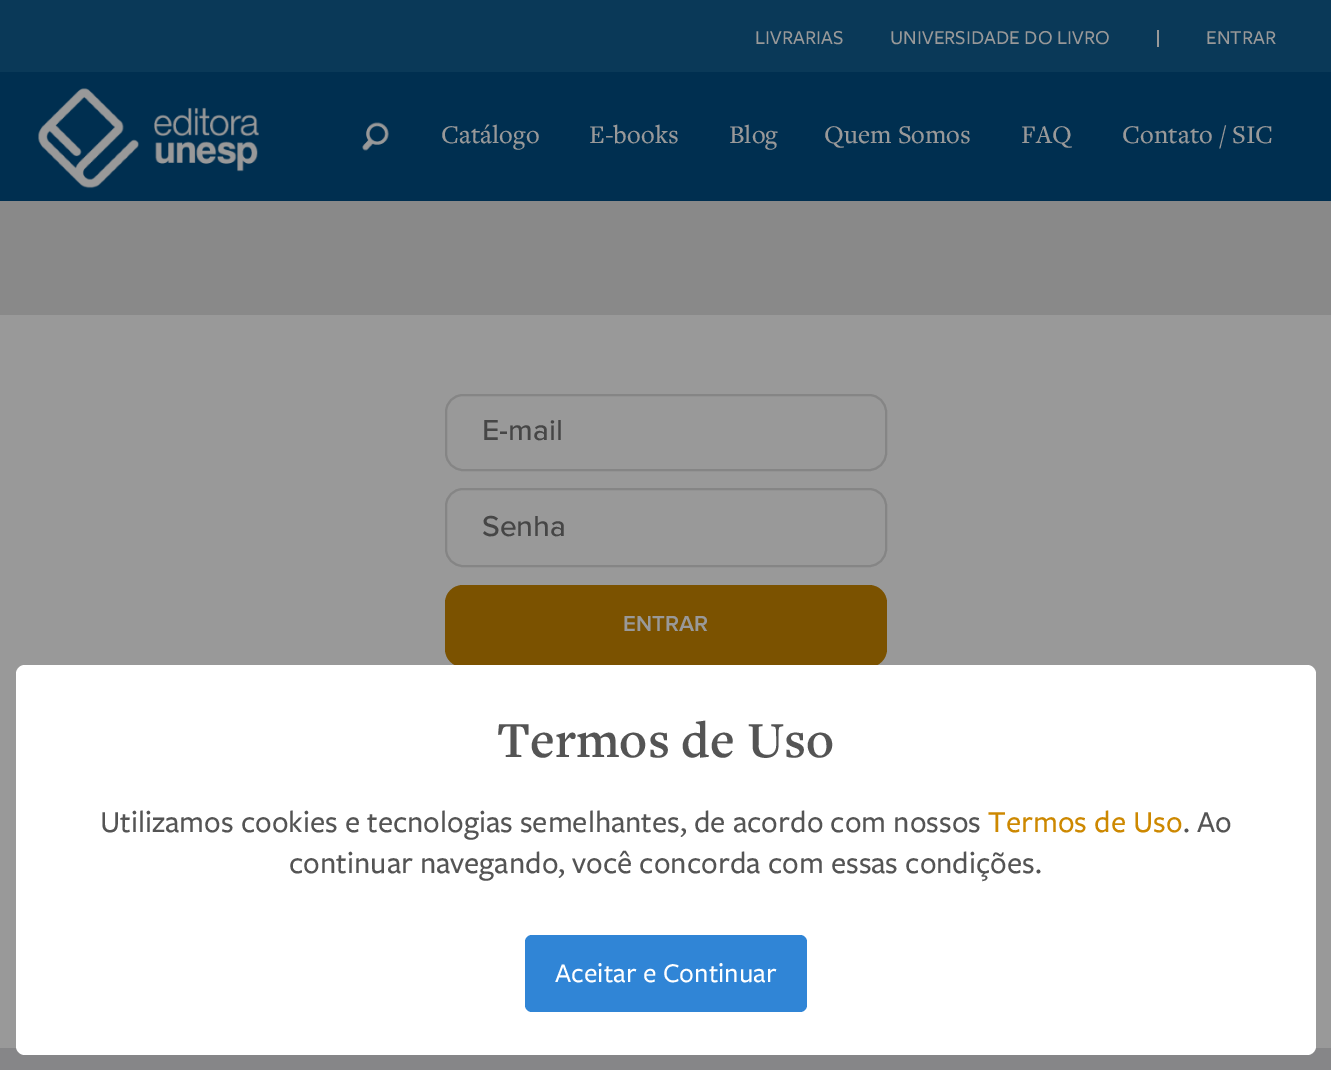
%!PS-Adobe-3.0
%%BoundingBox: 0 0 1331 1070
%%LanguageLevel: 3
%%Pages: 1
%%EndComments
%%BeginProlog
/setink { 3 { 255 div 3 1 roll } repeat setrgbcolor } def
/usefont { [ exch dup neg 0 0 3 -1 roll 0 0 ] selectfont } def
/drawtext { setink usefont moveto show } def
/fillbox { setink rectfill } def
/rrect { 5 dict begin { /r /h /w /y /x } { exch def } forall
  x r add y moveto x w add y 2 copy h add r arct x w add y h add x 1 index r arct
  x y h add x y r arct x y 2 copy exch w add exch r arct closepath end } def
/drawimage { 5 dict begin { /h /w /y /x /name } { exch def } forall
  gsave x y translate w h scale
  w h 8 [w 0 0 h 0 0] name (r) file false 3 colorimage grestore end } def
%%EndProlog
%%BeginSetup
<< /PageSize [1331 1070] >> setpagedevice
%%EndSetup
%%Page: 1 1
0 1070 translate 1 -1 scale
4 setmiterlimit
0 0 1331 1070 10 57 88 fillbox
(LIVRARIAS) 755 44 /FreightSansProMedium-Medium 20.5 153 153 153 drawtext
(UNIVERSIDADE DO LIVRO) 890 44 /FreightSansProMedium-Medium 20.5 153 153 153 drawtext
1157 30 2 17 153 153 153 fillbox
(ENTRAR) 1206 44 /FreightSansProMedium-Medium 20.5 153 153 153 drawtext
0 72 1331 129 0 47 80 fillbox
(assets/img1.rgb) 38 88 221 101 drawimage
(assets/img2.rgb) 362 122 27 29 drawimage
(Catálogo) 441 143 /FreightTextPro-Medium 26.5 153 153 153 drawtext
(E-books) 589 143 /FreightTextPro-Medium 26.5 153 153 153 drawtext
(Blog) 729 143 /FreightTextPro-Medium 26.5 153 153 153 drawtext
(Quem Somos) 824 143 /FreightTextPro-Medium 26.5 153 153 153 drawtext
(FAQ) 1021 143 /FreightTextPro-Medium 26.5 153 153 153 drawtext
(Contato / SIC) 1122 143 /FreightTextPro-Medium 26.5 153 153 153 drawtext
0 201 1331 114 137 137 137 fillbox
0 315 1331 733 153 153 153 fillbox
133 133 133 setink
2 setlinewidth
446 395 440 75 17 rrect stroke
(E-mail) 482 440 /ProximaNova-Medium 30 70 70 70 drawtext
133 133 133 setink
446 489 440 77 17 rrect stroke
(Senha) 482 536 /ProximaNova-Medium 30 70 70 70 drawtext
123 82 0 setink
445 585 442 82 18 rrect fill
(ENTRAR) 623 631 /ProximaNova-SemiBold 22.5 153 153 153 drawtext
0 1048 1331 22 134 134 136 fillbox
255 255 255 setink
16 665 1300 390 9 rrect fill
(Termos de Uso) 497 757 /FreightTextPro-SemiBold 52.5 84 84 84 drawtext
(Utilizamos cookies e tecnologias semelhantes, de acordo com nossos) 100 832 /FreightSansProMedium-Medium 31.5 84 84 84 drawtext
(Termos de Uso) 988 832 /FreightSansProMedium-Medium 31.5 205 136 0 drawtext
(. Ao) 1183 832 /FreightSansProMedium-Medium 31.5 84 84 84 drawtext
(continuar navegando, você concorda com essas condições.) 289 873 /FreightSansProMedium-Medium 31.5 84 84 84 drawtext
48 133 214 setink
525 935 282 77 7 rrect fill
(Aceitar e Continuar) 555 982 /FreightSansProMedium-Medium 28 255 255 255 drawtext
showpage
%%EOF
